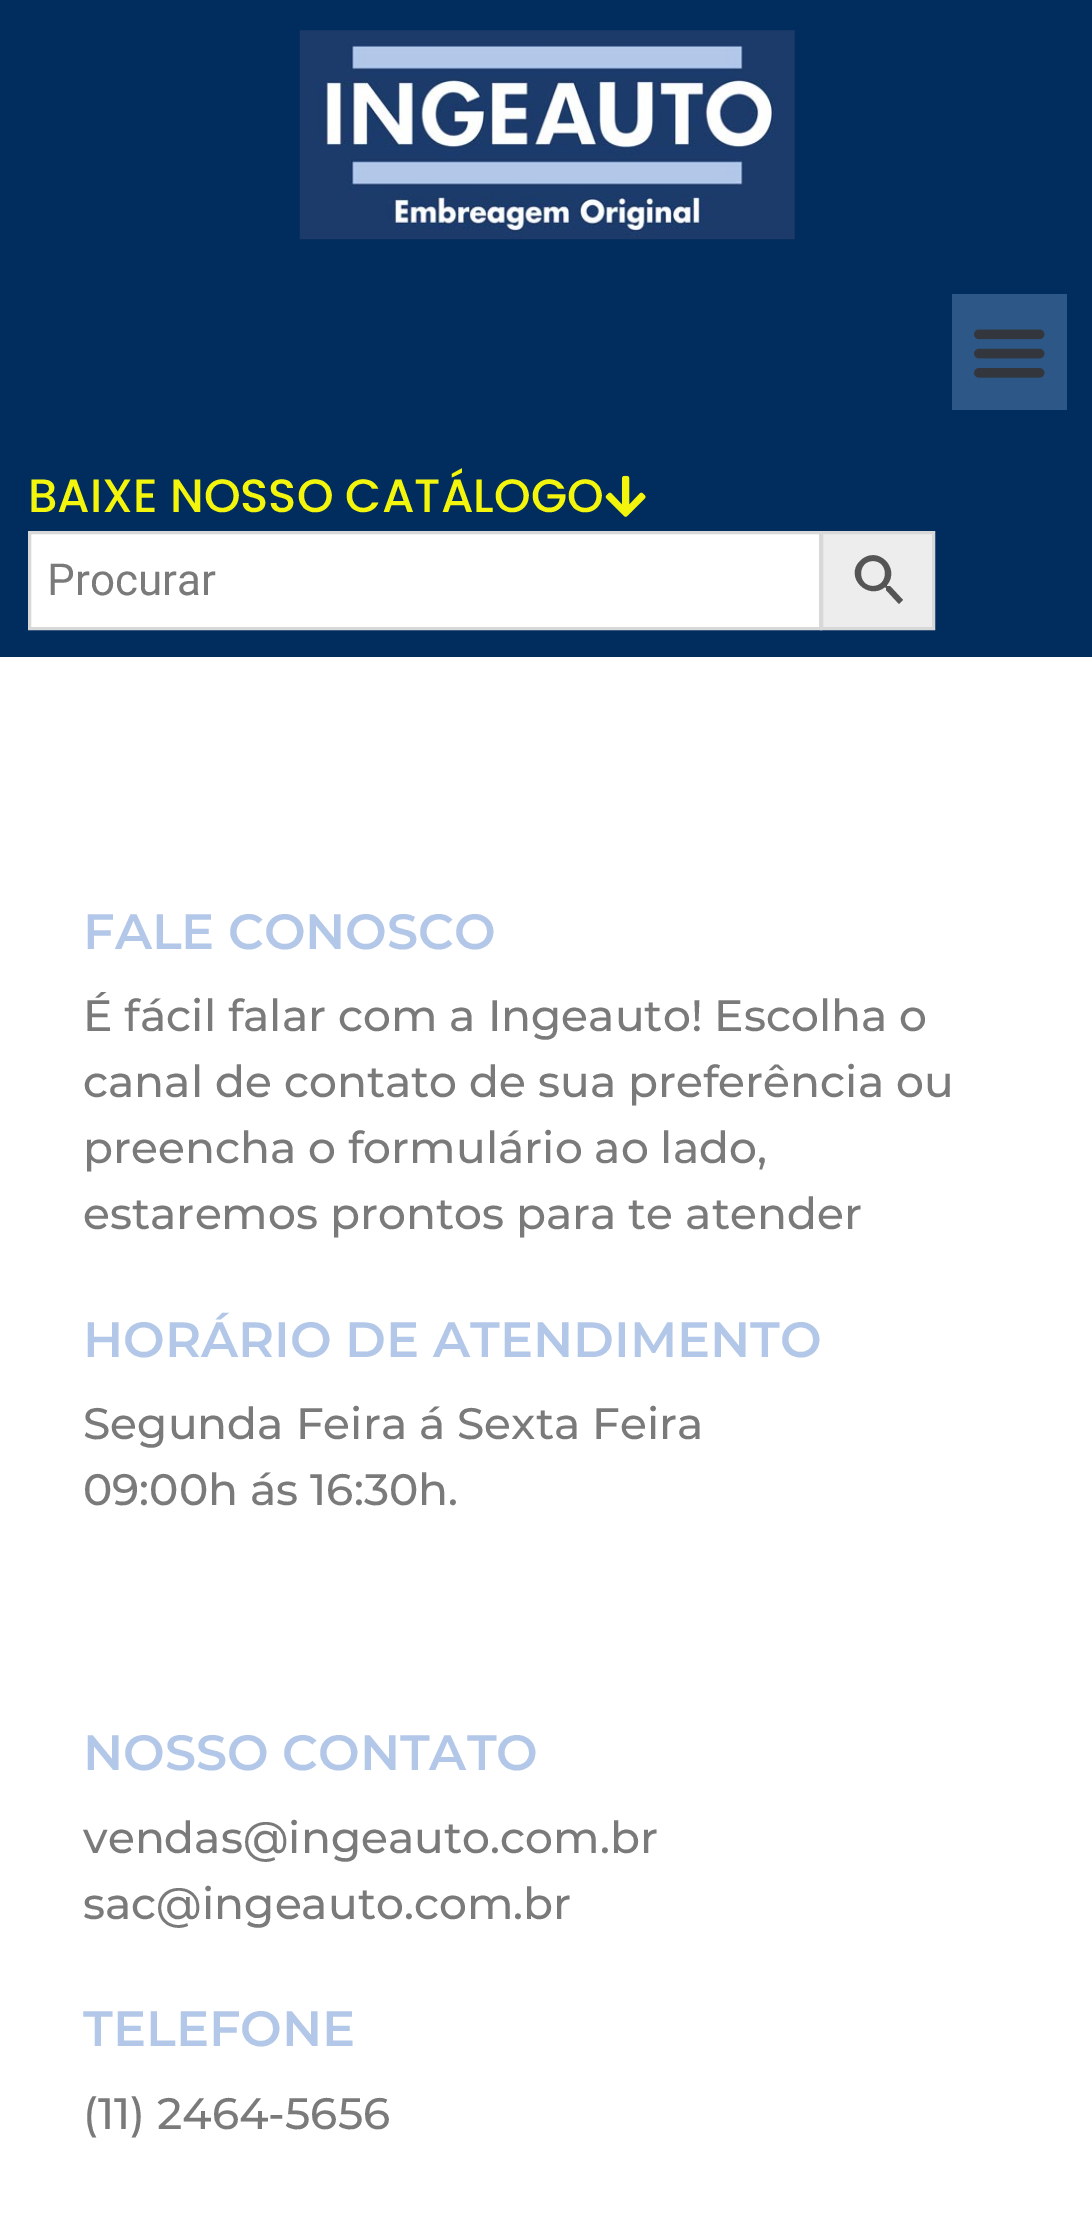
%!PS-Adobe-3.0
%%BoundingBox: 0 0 1092 2235
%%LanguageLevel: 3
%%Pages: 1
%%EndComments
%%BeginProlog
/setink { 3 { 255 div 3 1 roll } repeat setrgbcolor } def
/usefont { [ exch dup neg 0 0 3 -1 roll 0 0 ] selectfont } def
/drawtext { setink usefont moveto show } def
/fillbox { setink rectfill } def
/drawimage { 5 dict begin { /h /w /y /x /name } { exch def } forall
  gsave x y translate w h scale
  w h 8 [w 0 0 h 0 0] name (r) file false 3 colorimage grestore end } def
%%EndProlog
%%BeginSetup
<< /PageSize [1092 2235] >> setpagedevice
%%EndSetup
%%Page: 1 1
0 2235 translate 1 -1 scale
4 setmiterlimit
0 0 1092 2235 255 255 255 fillbox
0 0 1092 657 0 45 94 fillbox
(assets/img1.rgb) 299 30 496 210 drawimage
952 294 115 116 45 87 134 fillbox
(assets/img2.rgb) 974 329 71 49 drawimage
(BAIXE NOSSO CATÁLOGO) 28 512 /Poppins-Medium 46.75 244 245 12 drawtext
(assets/img3.rgb) 605 475 41 42 drawimage
237 237 237 setink
821.5 532.5 moveto 933.5 532.5 lineto 933.5 628.5 lineto 821.5 628.5 lineto closepath gsave fill grestore
216 216 216 setink
3 setlinewidth
stroke
255 255 255 setink
29.5 532.5 moveto 820.5 532.5 lineto 820.5 628.5 lineto 29.5 628.5 lineto closepath gsave fill grestore
216 216 216 setink
stroke
(Procurar) 47 595 /Roboto-Regular 44 122 122 122 drawtext
85 85 85 setink
890 586 moveto 887 586 lineto 887 585 lineto 901 568 877 544 860 561 curveto 844 577 868 601 885 587 curveto 886 588 lineto 886 590 lineto 899 604 lineto 903 600 lineto closepath 873 586 moveto 857 586 857 561 873 561 curveto 889 561 889 586 873 586 curveto closepath fill
(FALE CONOSCO) 83 949 /Montserrat-SemiBold 49.5 179 199 232 drawtext
(É fácil falar com a Ingeauto! Escolha o) 83 1031 /Montserrat-Medium 44 122 122 122 drawtext
(canal de contato de sua preferência ou) 83 1097 /Montserrat-Medium 44 122 122 122 drawtext
(preencha o formulário ao lado,) 83 1163 /Montserrat-Medium 44 122 122 122 drawtext
(estaremos prontos para te atender) 83 1229 /Montserrat-Medium 44 122 122 122 drawtext
(HORÁRIO DE ATENDIMENTO) 83 1357 /Montserrat-SemiBold 49.5 179 199 232 drawtext
(Segunda Feira á Sexta Feira) 83 1439 /Montserrat-Medium 44 122 122 122 drawtext
(09:00h ás 16:30h.) 83 1505 /Montserrat-Medium 44 122 122 122 drawtext
(NOSSO CONTATO) 83 1770 /Montserrat-SemiBold 49.5 179 199 232 drawtext
(vendas@ingeauto.com.br) 83 1853 /Montserrat-Medium 44 122 122 122 drawtext
(sac@ingeauto.com.br) 83 1919 /Montserrat-Medium 44 122 122 122 drawtext
(TELEFONE) 83 2046 /Montserrat-SemiBold 49.5 179 199 232 drawtext
(\(11\) 2464-5656) 83 2129 /Montserrat-Medium 44 122 122 122 drawtext
showpage
%%EOF
